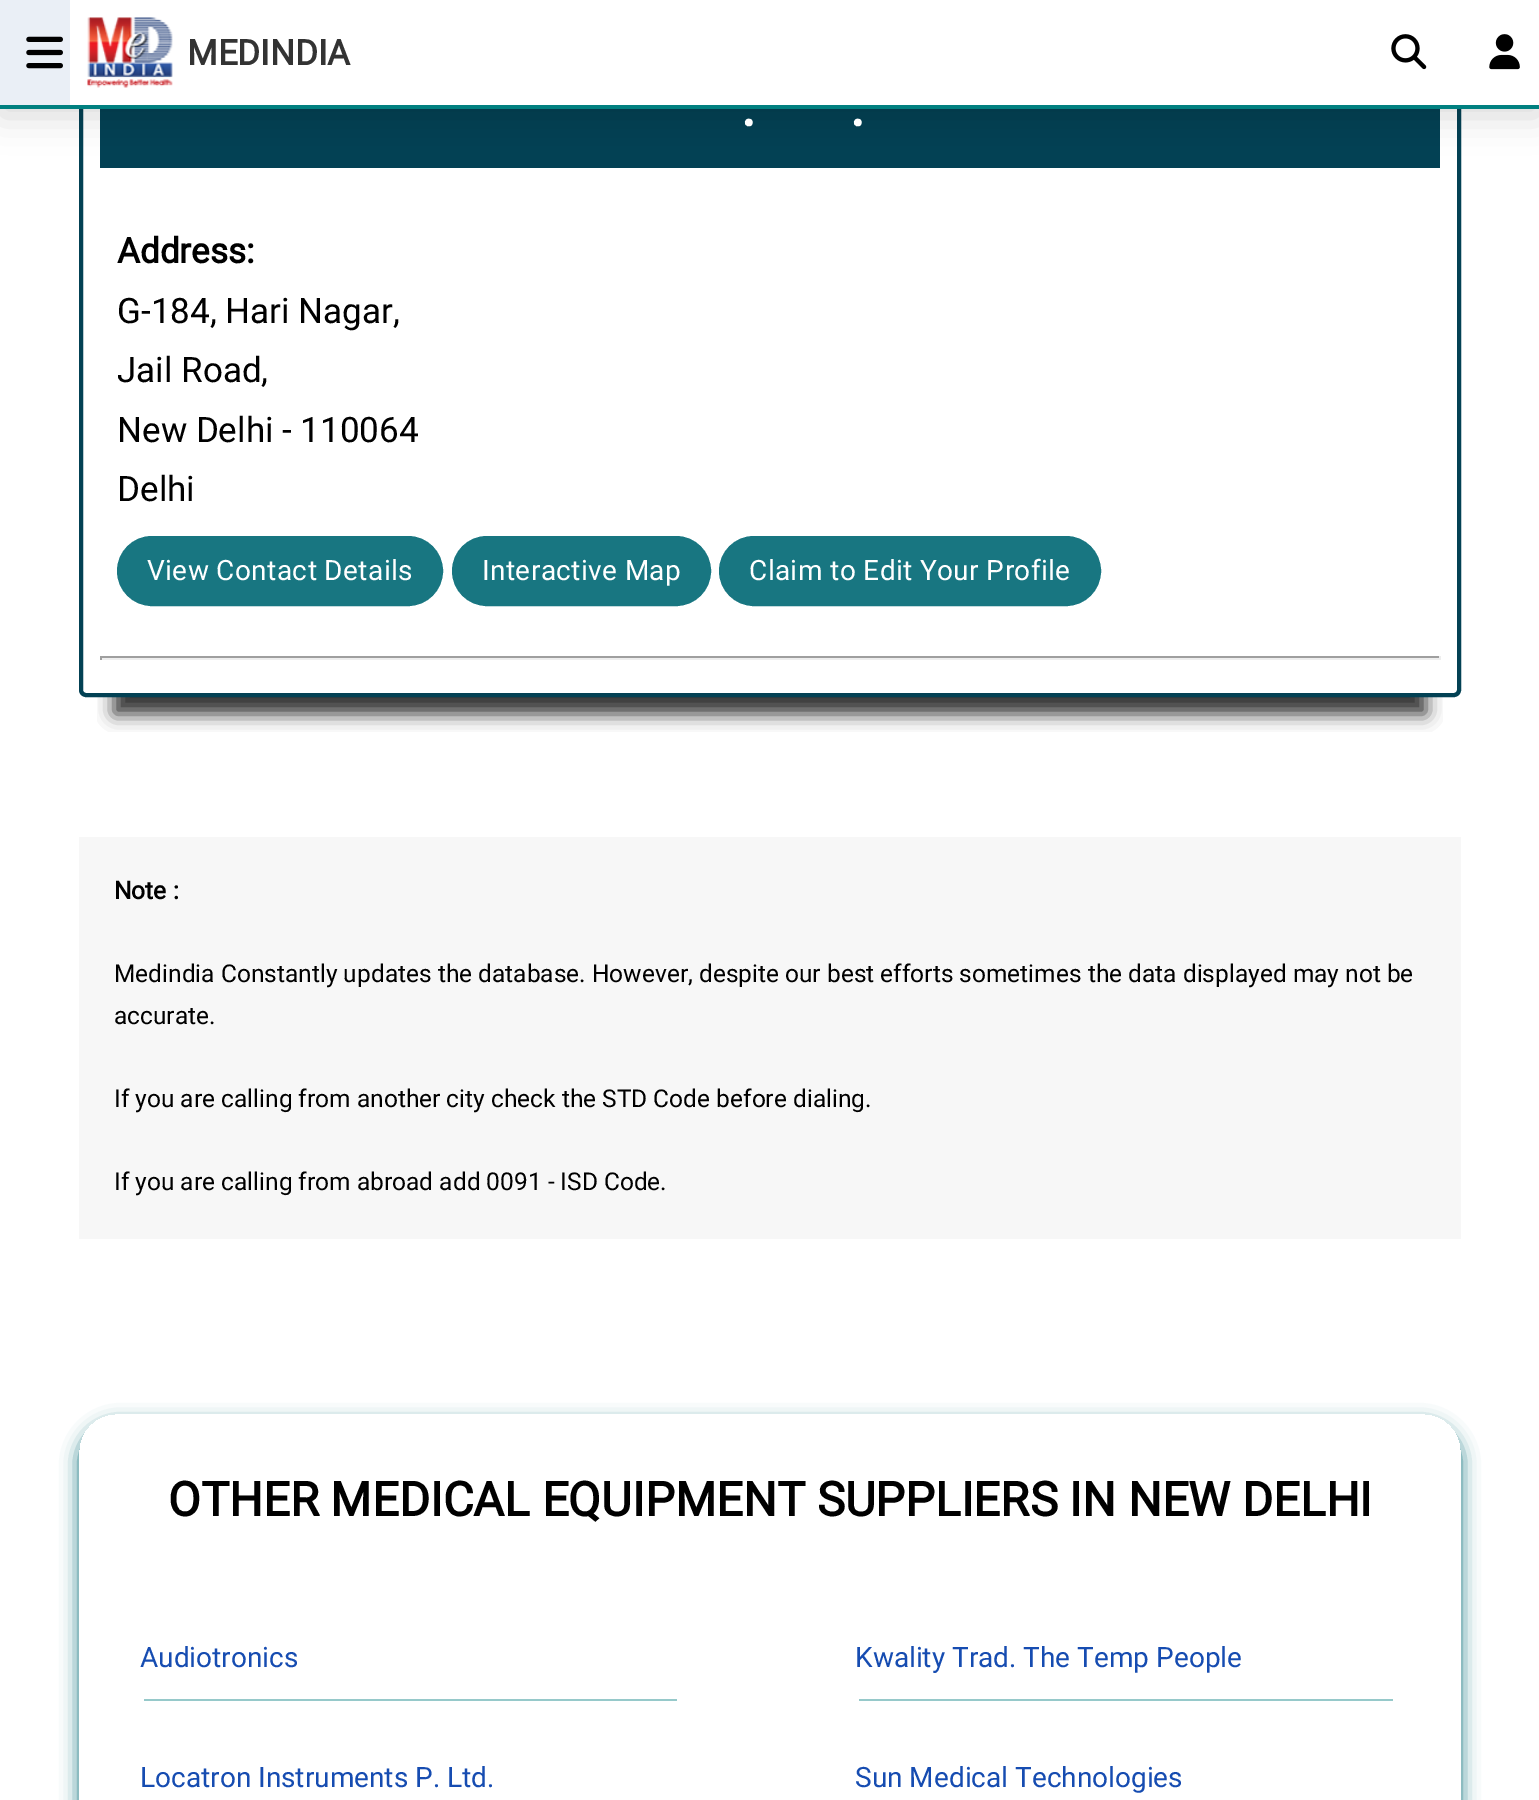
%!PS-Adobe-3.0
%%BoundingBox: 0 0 1539 1800
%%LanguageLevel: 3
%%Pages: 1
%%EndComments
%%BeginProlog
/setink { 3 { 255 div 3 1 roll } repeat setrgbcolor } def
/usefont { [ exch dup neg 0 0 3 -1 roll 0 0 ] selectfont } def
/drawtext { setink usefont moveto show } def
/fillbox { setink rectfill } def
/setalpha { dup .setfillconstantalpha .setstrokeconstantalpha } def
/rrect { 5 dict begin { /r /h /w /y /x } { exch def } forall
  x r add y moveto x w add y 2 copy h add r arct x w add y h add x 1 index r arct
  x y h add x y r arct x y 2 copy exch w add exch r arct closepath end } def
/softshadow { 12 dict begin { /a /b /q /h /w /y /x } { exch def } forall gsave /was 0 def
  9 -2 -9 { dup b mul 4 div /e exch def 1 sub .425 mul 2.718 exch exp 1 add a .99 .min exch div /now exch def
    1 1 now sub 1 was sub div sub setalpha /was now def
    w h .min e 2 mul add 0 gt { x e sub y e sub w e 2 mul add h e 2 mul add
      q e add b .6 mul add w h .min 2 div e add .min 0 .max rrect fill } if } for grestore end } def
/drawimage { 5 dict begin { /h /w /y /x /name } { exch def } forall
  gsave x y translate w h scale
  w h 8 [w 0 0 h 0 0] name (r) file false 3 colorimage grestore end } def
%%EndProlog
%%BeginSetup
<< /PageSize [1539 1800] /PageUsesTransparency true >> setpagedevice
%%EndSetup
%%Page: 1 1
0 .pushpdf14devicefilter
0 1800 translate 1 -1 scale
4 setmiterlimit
0 0 1539 1800 255 255 255 fillbox
gsave
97 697 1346 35 rectclip
0 0 0 setink
114 112 1312 602 0 9 0.8 softshadow
grestore
3 65 84 setink
4 setlinewidth
81 27 1378 668 5 rrect stroke
100 109 1340 59 3 65 84 fillbox
0 0 0 setink
0 7 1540 109 0 17.5 0.15 softshadow
70 0 1469 105 255 255 255 fillbox
0 105 1539 4 0 128 128 fillbox
0 0 70 105 234 239 246 fillbox
(assets/img1.rgb) 26 36 37 33 drawimage
(assets/img2.rgb) 87 17 86 71 drawimage
(MEDINDIA) 187 65 /Roboto-Bold 35 51 51 51 drawtext
(assets/img3.rgb) 1391 34 36 36 drawimage
(assets/img4.rgb) 1489 34 31 36 drawimage
(.) 741 126 /Roboto-Bold 56 255 255 255 drawtext
(.) 850 126 /Roboto-Bold 56 255 255 255 drawtext
(Address:) 117 263 /Roboto-Bold 35 0 0 0 drawtext
(G-184, Hari Nagar,) 117 323 /Roboto-Regular 35 0 0 0 drawtext
(Jail Road,) 117 382 /Roboto-Regular 35 0 0 0 drawtext
(New Delhi - 110064) 117 442 /Roboto-Regular 35 0 0 0 drawtext
(Delhi) 117 501 /Roboto-Regular 35 0 0 0 drawtext
24 118 129 setink
118 537 324 68 34 rrect gsave fill grestore
2 setlinewidth
stroke
/Roboto-Regular 28 usefont
255 255 255 setink
147 580 moveto 0.4 0 (View Contact Details) ashow
24 118 129 setink
453 537 257 68 34 rrect gsave fill grestore
stroke
255 255 255 setink
482 580 moveto 0.4 0 (Interactive Map) ashow
24 118 129 setink
720 537 380 68 34 rrect gsave fill grestore
stroke
255 255 255 setink
749 580 moveto 0.4 0 (Claim to Edit Your Profile) ashow
100 656 1340 2 159 159 159 fillbox
1439 656 2 4 238 238 238 fillbox
100 658 1340 2 238 238 238 fillbox
100 656 2 4 159 159 159 fillbox
79 837 1382 402 247 247 247 fillbox
(Note :) 114 899 /Roboto-Bold 24.5 0 0 0 drawtext
(Medindia Constantly updates the database. However, despite our best efforts sometimes the data displayed may not be) 114 982 /Roboto-Regular 24.5 0 0 0 drawtext
(accurate.) 114 1024 /Roboto-Regular 24.5 0 0 0 drawtext
(If you are calling from another city check the STD Code before dialing.) 114 1107 /Roboto-Regular 24.5 0 0 0 drawtext
(If you are calling from abroad add 0091 - ISD Code.) 114 1190 /Roboto-Regular 24.5 0 0 0 drawtext
gsave
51 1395 moveto 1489 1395 lineto 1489 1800 lineto 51 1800 lineto closepath 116 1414 moveto 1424 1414 lineto 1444.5 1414 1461 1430.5 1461 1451 curveto 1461 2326 lineto 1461 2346.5 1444.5 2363 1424 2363 curveto 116 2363 lineto 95.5 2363 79 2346.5 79 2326 curveto 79 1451 lineto 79 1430.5 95.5 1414 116 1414 curveto closepath eoclip newpath
24 118 129 setink
79 1423 1382 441 37 9 1 softshadow
grestore
(OTHER MEDICAL EQUIPMENT SUPPLIERS IN NEW DELHI) 168 1516 /Roboto-Bold 47.35 0 0 0 drawtext
144 1699 533 2 150 201 202 fillbox
(Audiotronics) 140 1667 /Roboto-Regular 28 22 76 177 drawtext
859 1699 534 2 150 201 202 fillbox
(Kwality Trad. The Temp People) 855 1667 /Roboto-Regular 28 22 76 177 drawtext
(Locatron Instruments P. Ltd.) 140 1787 /Roboto-Regular 28 22 76 177 drawtext
(Sun Medical Technologies) 855 1787 /Roboto-Regular 28 22 76 177 drawtext
.poppdf14devicefilter showpage
%%EOF
